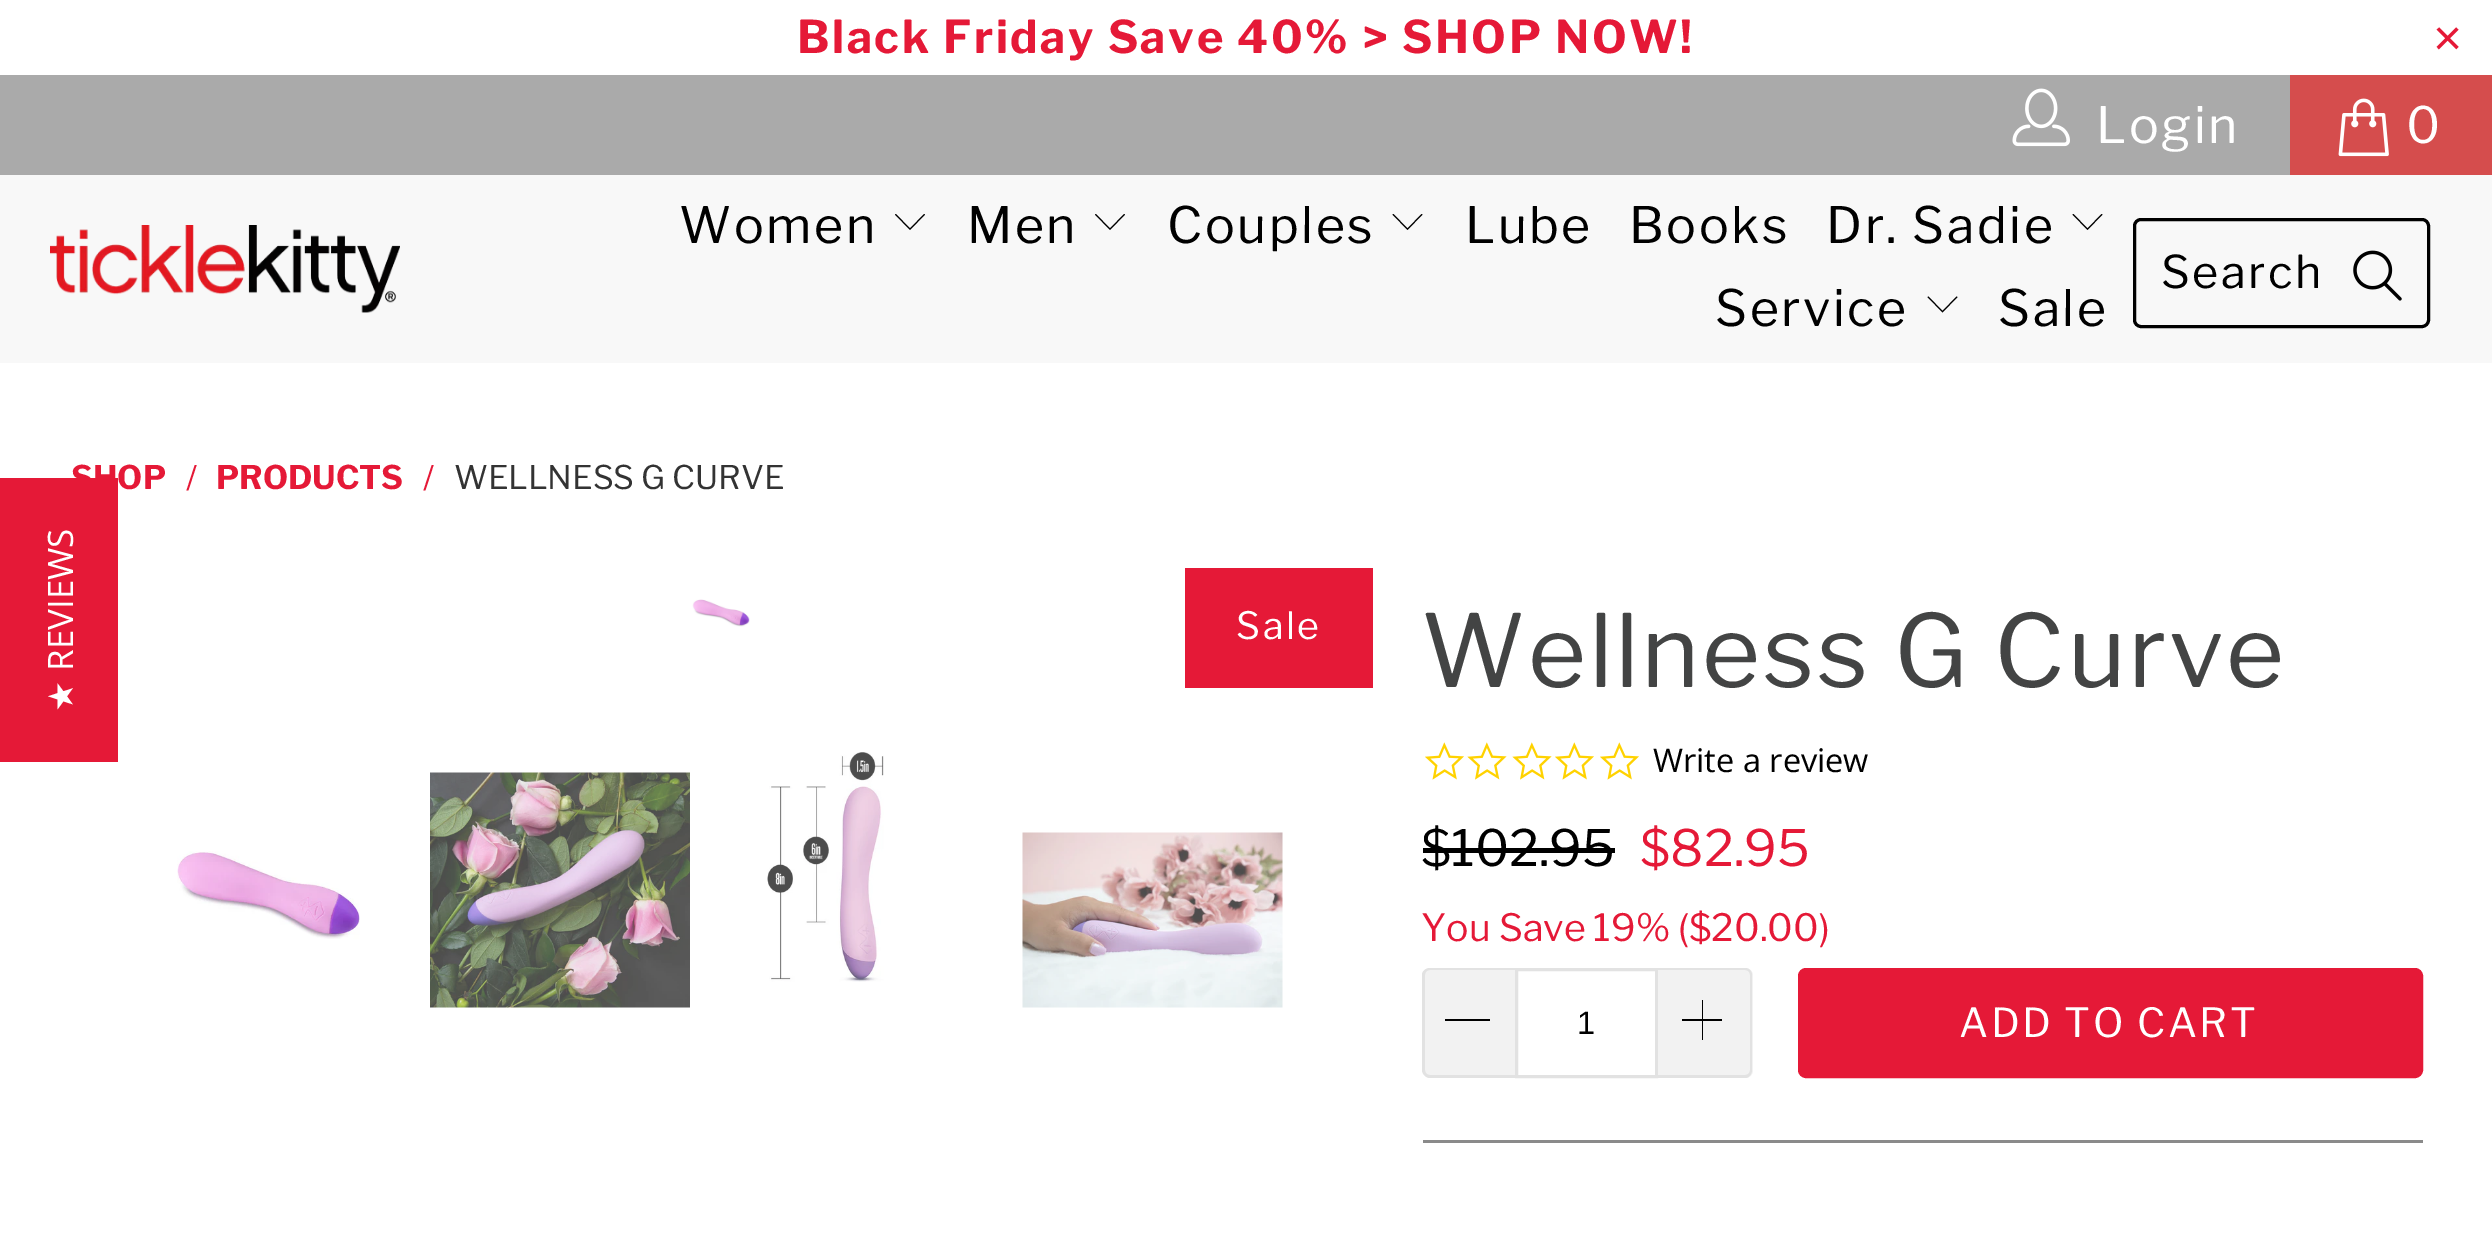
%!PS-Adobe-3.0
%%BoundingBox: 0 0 2492 1238
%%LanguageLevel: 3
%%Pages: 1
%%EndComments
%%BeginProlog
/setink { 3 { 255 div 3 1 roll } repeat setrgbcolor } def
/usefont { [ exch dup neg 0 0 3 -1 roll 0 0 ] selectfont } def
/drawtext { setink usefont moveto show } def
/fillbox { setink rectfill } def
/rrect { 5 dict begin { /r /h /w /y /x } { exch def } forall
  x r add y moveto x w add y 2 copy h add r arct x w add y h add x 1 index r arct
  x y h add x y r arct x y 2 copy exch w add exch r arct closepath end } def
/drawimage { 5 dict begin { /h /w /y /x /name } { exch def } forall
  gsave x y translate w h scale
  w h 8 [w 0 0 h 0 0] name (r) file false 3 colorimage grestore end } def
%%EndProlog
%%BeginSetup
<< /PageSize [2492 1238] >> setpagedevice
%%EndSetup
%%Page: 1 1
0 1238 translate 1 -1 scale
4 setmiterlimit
0 0 2492 1238 255 255 255 fillbox
/LibreFranklin-Bold 45 usefont
229 25 55 setink
797 53 moveto 2.5 0 (Black Friday Save 40% > SHOP NOW!) ashow
/LiberationSans-Regular 50 usefont
2433 55 moveto 2.5 0 (×) ashow
0 75 2290 100 170 170 170 fillbox
(assets/img1.rgb) 2012 88 58 59 drawimage
/LibreFranklin-Regular 50 usefont
255 255 255 setink
2096 143 moveto 2.5 0 (Login) ashow
2290 75 202 100 213 77 77 fillbox
(assets/img2.rgb) 2338 98 51 59 drawimage
255 255 255 setink
2406 143 moveto 2.5 0 (0) ashow
0 175 2492 188 248 248 248 fillbox
(assets/img3.rgb) 50 225 350 88 drawimage
0 0 0 setink
679 243 moveto 2.5 0 (Women) ashow
910 230 moveto 895 214.5 lineto 896 214 lineto 910 228.5 lineto 924 214 lineto 925 214.5 lineto closepath fill
967 243 moveto 2.5 0 (Men) ashow
1110 230 moveto 1095 214.5 lineto 1096 214 lineto 1110 228.5 lineto 1124 214 lineto 1125 214.5 lineto closepath fill
1167 243 moveto 2.5 0 (Couples) ashow
1407.5 230 moveto 1392.5 214.5 lineto 1393.5 214 lineto 1407.5 228.5 lineto 1421.5 214 lineto 1422.5 214.5 lineto closepath fill
1465 243 moveto 2.5 0 (Lube) ashow
1629 243 moveto 2.5 0 (Books) ashow
1826 243 moveto 2.5 0 (Dr. Sadie) ashow
2087.5 230 moveto 2072.5 214.5 lineto 2073.5 214 lineto 2087.5 228.5 lineto 2101.5 214 lineto 2102.5 214.5 lineto closepath fill
1715 326 moveto 2.5 0 (Service) ashow
1942.5 312.5 moveto 1927.5 297 lineto 1928.5 296.5 lineto 1942.5 311 lineto 1956.5 296.5 lineto 1957.5 297 lineto closepath fill
1998 326 moveto 2.5 0 (Sale) ashow
3 setlinewidth
2134.5 219.5 294 107 6.5 rrect stroke
/LibreFranklin-Regular 45 usefont
2161 288 moveto 2.5 0 (Search) ashow
(assets/img4.rgb) 2353 250 49 51 drawimage
0 478 118 284 229 25 55 fillbox
/OpenSans-Regular 35 usefont
255 255 255 setink
gsave 73 671 translate -90 rotate 0 0 moveto (REVIEWS) show grestore
/DejaVuSans-Regular 35 usefont
gsave 73 712 translate -90 rotate 0 0 moveto (★) show grestore
(SHOP) 71 489 /LibreFranklin-Bold 32.5 229 25 55 drawtext
(/) 186 489 /LibreFranklin-Regular 32.5 229 25 55 drawtext
(PRODUCTS) 216 489 /LibreFranklin-Bold 32.5 229 25 55 drawtext
(/) 423 489 /LibreFranklin-Regular 32.5 229 25 55 drawtext
(WELLNESS G CURVE) 454 489 /LibreFranklin-Regular 32.5 51 51 51 drawtext
(assets/img5.rgb) 692 599 58 28 drawimage
(assets/img6.rgb) 177 851 183 88 drawimage
(assets/img7.rgb) 430 772 260 236 drawimage
(assets/img8.rgb) 767 752 117 230 drawimage
(assets/img9.rgb) 1022 832 261 176 drawimage
1185 568 188 120 229 25 55 fillbox
/LibreFranklin-Regular 37.5 usefont
255 255 255 setink
1236 639 moveto 2.5 0 (Sale) ashow
/LibreFranklin-Regular 100 usefont
67 68 68 setink
1421 687 moveto 2.5 0 (Wellness G Curve) ashow
(assets/img10.rgb) 1425 742 39 38 drawimage
(assets/img11.rgb) 1467 742 40 38 drawimage
(assets/img11.rgb) 1512 742 40 38 drawimage
(assets/img10.rgb) 1555 742 39 38 drawimage
(assets/img10.rgb) 1600 742 39 38 drawimage
(Write a review) 1653 772 /OpenSans-Regular 32.5 0 0 0 drawtext
($102.95) 1421 866 /LibreFranklin-Regular 50 0 0 0 drawtext
1423 848 192 5 0 0 0 fillbox
($82.95) 1640 866 /LibreFranklin-Regular 50 229 25 55 drawtext
(You Save 19% \($20.00\)) 1421 941 /LibreFranklin-Regular 37.5 229 25 55 drawtext
1423 1140 1000 3 138 138 138 fillbox
242 242 242 setink
1431 968 moveto 1515 968 lineto 1515 1078 lineto 1431 1078 lineto 1426.5 1078 1423 1074.5 1423 1070 curveto 1423 976 lineto 1423 971.5 1426.5 968 1431 968 curveto closepath fill
226 226 226 setink
1430 968 moveto 1515 968 lineto 1515 1078 lineto 1430 1078 lineto 1426 1078 1422 1074 1422 1070 curveto 1422 975 lineto 1422 971 1426 968 1430 968 curveto closepath 1430 970 moveto 1515 970 lineto 1515 1075 lineto 1430 1075 lineto 1427 1075 1425 1073 1425 1070 curveto 1425 975 lineto 1425 972 1427 970 1430 970 curveto closepath eofill
1445 1019 45 2 0 0 0 fillbox
226 226 226 setink
1516.5 969.5 140 107 rectstroke
(1) 1577 1034 /LiberationSans-Regular 32.5 0 0 0 drawtext
242 242 242 setink
1658 968 moveto 1745 968 lineto 1749.5 968 1753 971.5 1753 976 curveto 1753 1070 lineto 1753 1074.5 1749.5 1078 1745 1078 curveto 1658 1078 lineto closepath fill
226 226 226 setink
1658 968 moveto 1745 968 lineto 1749 968 1752 971 1752 975 curveto 1752 1070 lineto 1752 1074 1749 1078 1745 1078 curveto 1658 1078 lineto closepath 1658 970 moveto 1745 970 lineto 1748 970 1750 972 1750 975 curveto 1750 1070 lineto 1750 1073 1748 1075 1745 1075 curveto 1658 1075 lineto closepath eofill
0 0 0 setink
1722 1019 moveto 1703 1019 lineto 1703 1000 lineto 1702 1000 lineto 1702 1019 lineto 1682 1019 lineto 1682 1021 lineto 1702 1021 lineto 1702 1040 lineto 1703 1040 lineto 1703 1021 lineto 1722 1021 lineto closepath fill
229 25 55 setink
1799.5 969.5 622 107 6.5 rrect gsave fill grestore
stroke
/LibreFranklin-Regular 40 usefont
255 255 255 setink
1959 1037 moveto 2.5 0 (ADD TO CART) ashow
showpage
%%EOF
